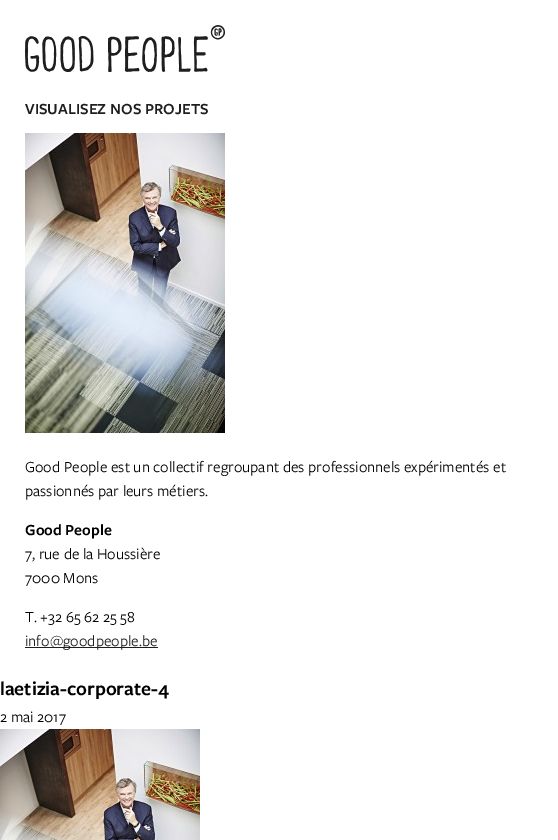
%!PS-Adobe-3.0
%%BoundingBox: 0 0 558 840
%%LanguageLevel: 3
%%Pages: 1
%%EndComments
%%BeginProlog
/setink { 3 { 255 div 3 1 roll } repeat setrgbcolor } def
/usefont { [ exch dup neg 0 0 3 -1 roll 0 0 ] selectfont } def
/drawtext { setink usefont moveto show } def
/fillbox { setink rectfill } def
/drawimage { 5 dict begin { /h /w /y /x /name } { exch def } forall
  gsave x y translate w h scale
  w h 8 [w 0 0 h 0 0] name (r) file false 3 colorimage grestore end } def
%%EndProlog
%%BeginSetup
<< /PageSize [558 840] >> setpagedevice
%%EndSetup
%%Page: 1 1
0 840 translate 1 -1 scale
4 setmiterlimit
0 0 558 840 255 255 255 fillbox
(assets/img1.rgb) 25 25 200 47 drawimage
(VISUALISEZ NOS PROJETS) 25 114 /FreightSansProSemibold-SemiBold 16 30 30 30 drawtext
(assets/img2.rgb) 25 133 200 300 drawimage
(Good People est un collectif regroupant des professionnels expérimentés et) 25 472 /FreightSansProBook-Regular 16 0 0 0 drawtext
(passionnés par leurs métiers.) 25 496 /FreightSansProBook-Regular 16 0 0 0 drawtext
(Good People) 25 535 /FreightSansProSemibold-SemiBold 16 0 0 0 drawtext
(7, rue de la Houssière) 25 559 /FreightSansProBook-Regular 16 0 0 0 drawtext
(7000 Mons) 25 583 /FreightSansProBook-Regular 16 0 0 0 drawtext
(T. +32 65 62 25 58) 25 622 /FreightSansProBook-Regular 16 0 0 0 drawtext
25 647 133 1 30 30 30 fillbox
(info@goodpeople.be) 25 646 /FreightSansProBook-Regular 16 30 30 30 drawtext
gsave
0 678 558 21 rectclip
(laetizia-corporate-4) 0 695 /FreightSansProSemibold-SemiBold 20 0 0 0 drawtext
grestore
(2 mai 2017) 0 722 /FreightSansProBook-Regular 16 0 0 0 drawtext
(assets/img3.rgb) 0 729 200 111 drawimage
showpage
%%EOF
